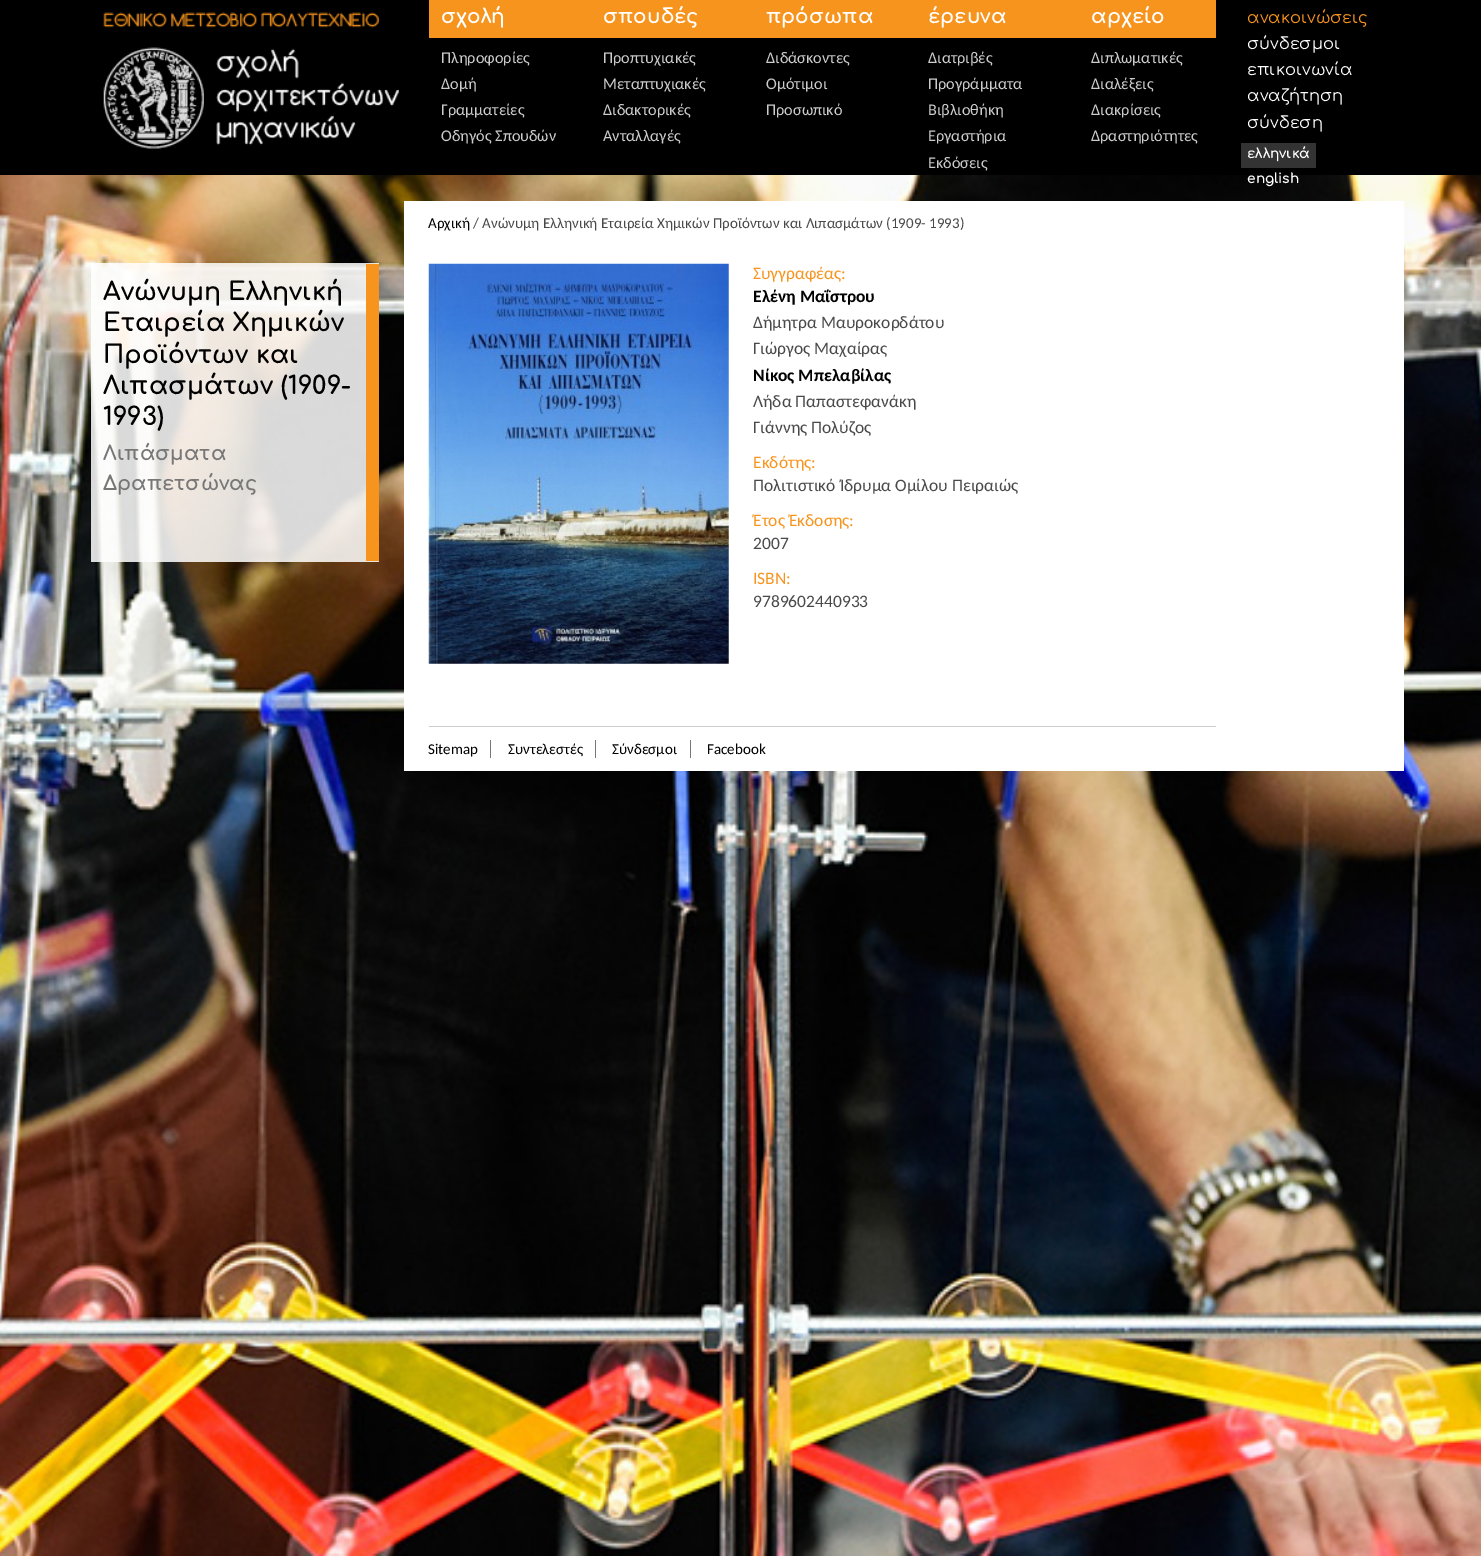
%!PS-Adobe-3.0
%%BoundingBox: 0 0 1481 1556
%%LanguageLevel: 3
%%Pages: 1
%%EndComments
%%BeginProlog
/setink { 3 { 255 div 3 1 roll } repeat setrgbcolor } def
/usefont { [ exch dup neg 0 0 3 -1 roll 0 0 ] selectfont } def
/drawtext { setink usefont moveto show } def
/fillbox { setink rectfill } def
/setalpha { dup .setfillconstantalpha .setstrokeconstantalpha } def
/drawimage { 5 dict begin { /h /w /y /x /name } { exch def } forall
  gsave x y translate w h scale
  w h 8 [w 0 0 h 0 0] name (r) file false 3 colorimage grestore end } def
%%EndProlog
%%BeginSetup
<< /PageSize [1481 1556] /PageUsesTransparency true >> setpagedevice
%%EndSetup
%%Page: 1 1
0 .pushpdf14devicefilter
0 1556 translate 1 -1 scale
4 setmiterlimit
0 0 1481 1556 255 255 255 fillbox
0 0 1481 175 0 0 0 fillbox
(assets/img1.rgb) 103 12 296 137 drawimage
429 0 787 38 247 148 29 fillbox
(σχολή) 441 23 /Comfortaa-Bold 20 255 255 255 drawtext
(Πληροφορίες) 441 63 /Carlito-Regular 16.25 204 204 204 drawtext
(Δομή) 441 89 /Carlito-Regular 16.25 204 204 204 drawtext
(Γραμματείες) 441 115 /Carlito-Regular 16.25 204 204 204 drawtext
(Οδηγός Σπουδών) 441 141 /Carlito-Regular 16.25 204 204 204 drawtext
(σπουδές) 603 23 /Comfortaa-Bold 20 255 255 255 drawtext
(Προπτυχιακές) 603 63 /Carlito-Regular 16.25 204 204 204 drawtext
(Μεταπτυχιακές) 603 89 /Carlito-Regular 16.25 204 204 204 drawtext
(Διδακτορικές) 603 115 /Carlito-Regular 16.25 204 204 204 drawtext
(Ανταλλαγές) 603 141 /Carlito-Regular 16.25 204 204 204 drawtext
(πρόσωπα) 766 23 /Comfortaa-Bold 20 255 255 255 drawtext
(Διδάσκοντες) 766 63 /Carlito-Regular 16.25 204 204 204 drawtext
(Ομότιμοι) 766 89 /Carlito-Regular 16.25 204 204 204 drawtext
(Προσωπικό) 766 115 /Carlito-Regular 16.25 204 204 204 drawtext
(έρευνα) 928 23 /Comfortaa-Bold 20 255 255 255 drawtext
(Διατριβές) 928 63 /Carlito-Regular 16.25 204 204 204 drawtext
(Προγράμματα) 928 89 /Carlito-Regular 16.25 204 204 204 drawtext
(Βιβλιοθήκη) 928 115 /Carlito-Regular 16.25 204 204 204 drawtext
(Εργαστήρια) 928 141 /Carlito-Regular 16.25 204 204 204 drawtext
(Εκδόσεις) 928 168 /Carlito-Regular 16.25 204 204 204 drawtext
(αρχείο) 1091 23 /Comfortaa-Bold 20 255 255 255 drawtext
(Διπλωματικές) 1091 63 /Carlito-Regular 16.25 204 204 204 drawtext
(Διαλέξεις) 1091 89 /Carlito-Regular 16.25 204 204 204 drawtext
(Διακρίσεις) 1091 115 /Carlito-Regular 16.25 204 204 204 drawtext
(Δραστηριότητες) 1091 141 /Carlito-Regular 16.25 204 204 204 drawtext
(ανακοινώσεις) 1247 23 /Comfortaa-Regular 16.25 247 148 29 drawtext
(σύνδεσμοι) 1247 49 /Comfortaa-Regular 16.25 255 255 255 drawtext
(επικοινωνία) 1247 75 /Comfortaa-Regular 16.25 255 255 255 drawtext
(αναζήτηση) 1247 101 /Comfortaa-Regular 16.25 255 255 255 drawtext
(σύνδεση) 1247 128 /Comfortaa-Regular 16.25 255 255 255 drawtext
1241 143 75 25 51 51 51 fillbox
(ελληνικά) 1247 158 /Comfortaa-Bold 13.75 255 255 255 drawtext
(assets/img2.rgb) 0 175 1481 1381 drawimage
(english) 1247 183 /Comfortaa-Bold 13.75 255 255 255 drawtext
0.85 setalpha
91 263 288 299 255 255 255 fillbox
1 setalpha
366 264 13 297 247 148 29 fillbox
(Ανώνυμη Ελληνική) 103 300 /Comfortaa-Bold 25 0 0 0 drawtext
(Εταιρεία Χημικών) 103 331 /Comfortaa-Bold 25 0 0 0 drawtext
(Προϊόντων και) 103 363 /Comfortaa-Bold 25 0 0 0 drawtext
(Λιπασμάτων \(1909-) 103 394 /Comfortaa-Bold 25 0 0 0 drawtext
(1993\)) 103 425 /Comfortaa-Bold 25 0 0 0 drawtext
(Λιπάσματα) 103 460 /Comfortaa-Bold 20 119 119 119 drawtext
(Δραπετσώνας) 103 490 /Comfortaa-Bold 20 119 119 119 drawtext
404 201 1000 570 255 255 255 fillbox
(Αρχική) 428 228 /Carlito-Regular 15 0 0 0 drawtext
(/ Ανώνυμη Ελληνική Εταιρεία Χημικών Προϊόντων και Λιπασμάτων \(1909- 1993\)) 473 228 /Carlito-Regular 15 73 73 73 drawtext
(assets/img3.rgb) 428 263 301 401 drawimage
(Συγγραφέας:) 753 279 /Carlito-Regular 17.5 247 148 29 drawtext
(Ελένη Μαΐστρου) 753 302 /Carlito-Bold 17.5 0 0 0 drawtext
(Δήμητρα Μαυροκορδάτου) 753 328 /Carlito-Regular 17.5 73 73 73 drawtext
(Γιώργος Μαχαίρας) 753 354 /Carlito-Regular 17.5 73 73 73 drawtext
(Νίκος Μπελαβίλας) 753 381 /Carlito-Bold 17.5 0 0 0 drawtext
(Λήδα Παπαστεφανάκη) 753 407 /Carlito-Regular 17.5 73 73 73 drawtext
(Γιάννης Πολύζος) 753 433 /Carlito-Regular 17.5 73 73 73 drawtext
(Εκδότης:) 753 468 /Carlito-Regular 17.5 247 148 29 drawtext
(Πολιτιστικό Ίδρυμα Ομίλου Πειραιώς) 753 491 /Carlito-Regular 17.5 73 73 73 drawtext
(Έτος Έκδοσης:) 753 526 /Carlito-Regular 17.5 247 148 29 drawtext
(2007) 753 549 /Carlito-Regular 17.5 73 73 73 drawtext
(ISBN:) 753 584 /Carlito-Regular 17.5 247 148 29 drawtext
(9789602440933) 753 607 /Carlito-Regular 17.5 73 73 73 drawtext
429 726 787 1 204 204 204 fillbox
(Sitemap) 428 754 /Carlito-Regular 15 0 0 0 drawtext
490 740 1 18 119 119 119 fillbox
(Συντελεστές) 508 754 /Carlito-Regular 15 0 0 0 drawtext
595 740 1 18 119 119 119 fillbox
(Σύνδεσμοι) 612 754 /Carlito-Regular 15 0 0 0 drawtext
690 740 1 18 119 119 119 fillbox
(Facebook) 707 754 /Carlito-Regular 15 0 0 0 drawtext
.poppdf14devicefilter showpage
%%EOF
